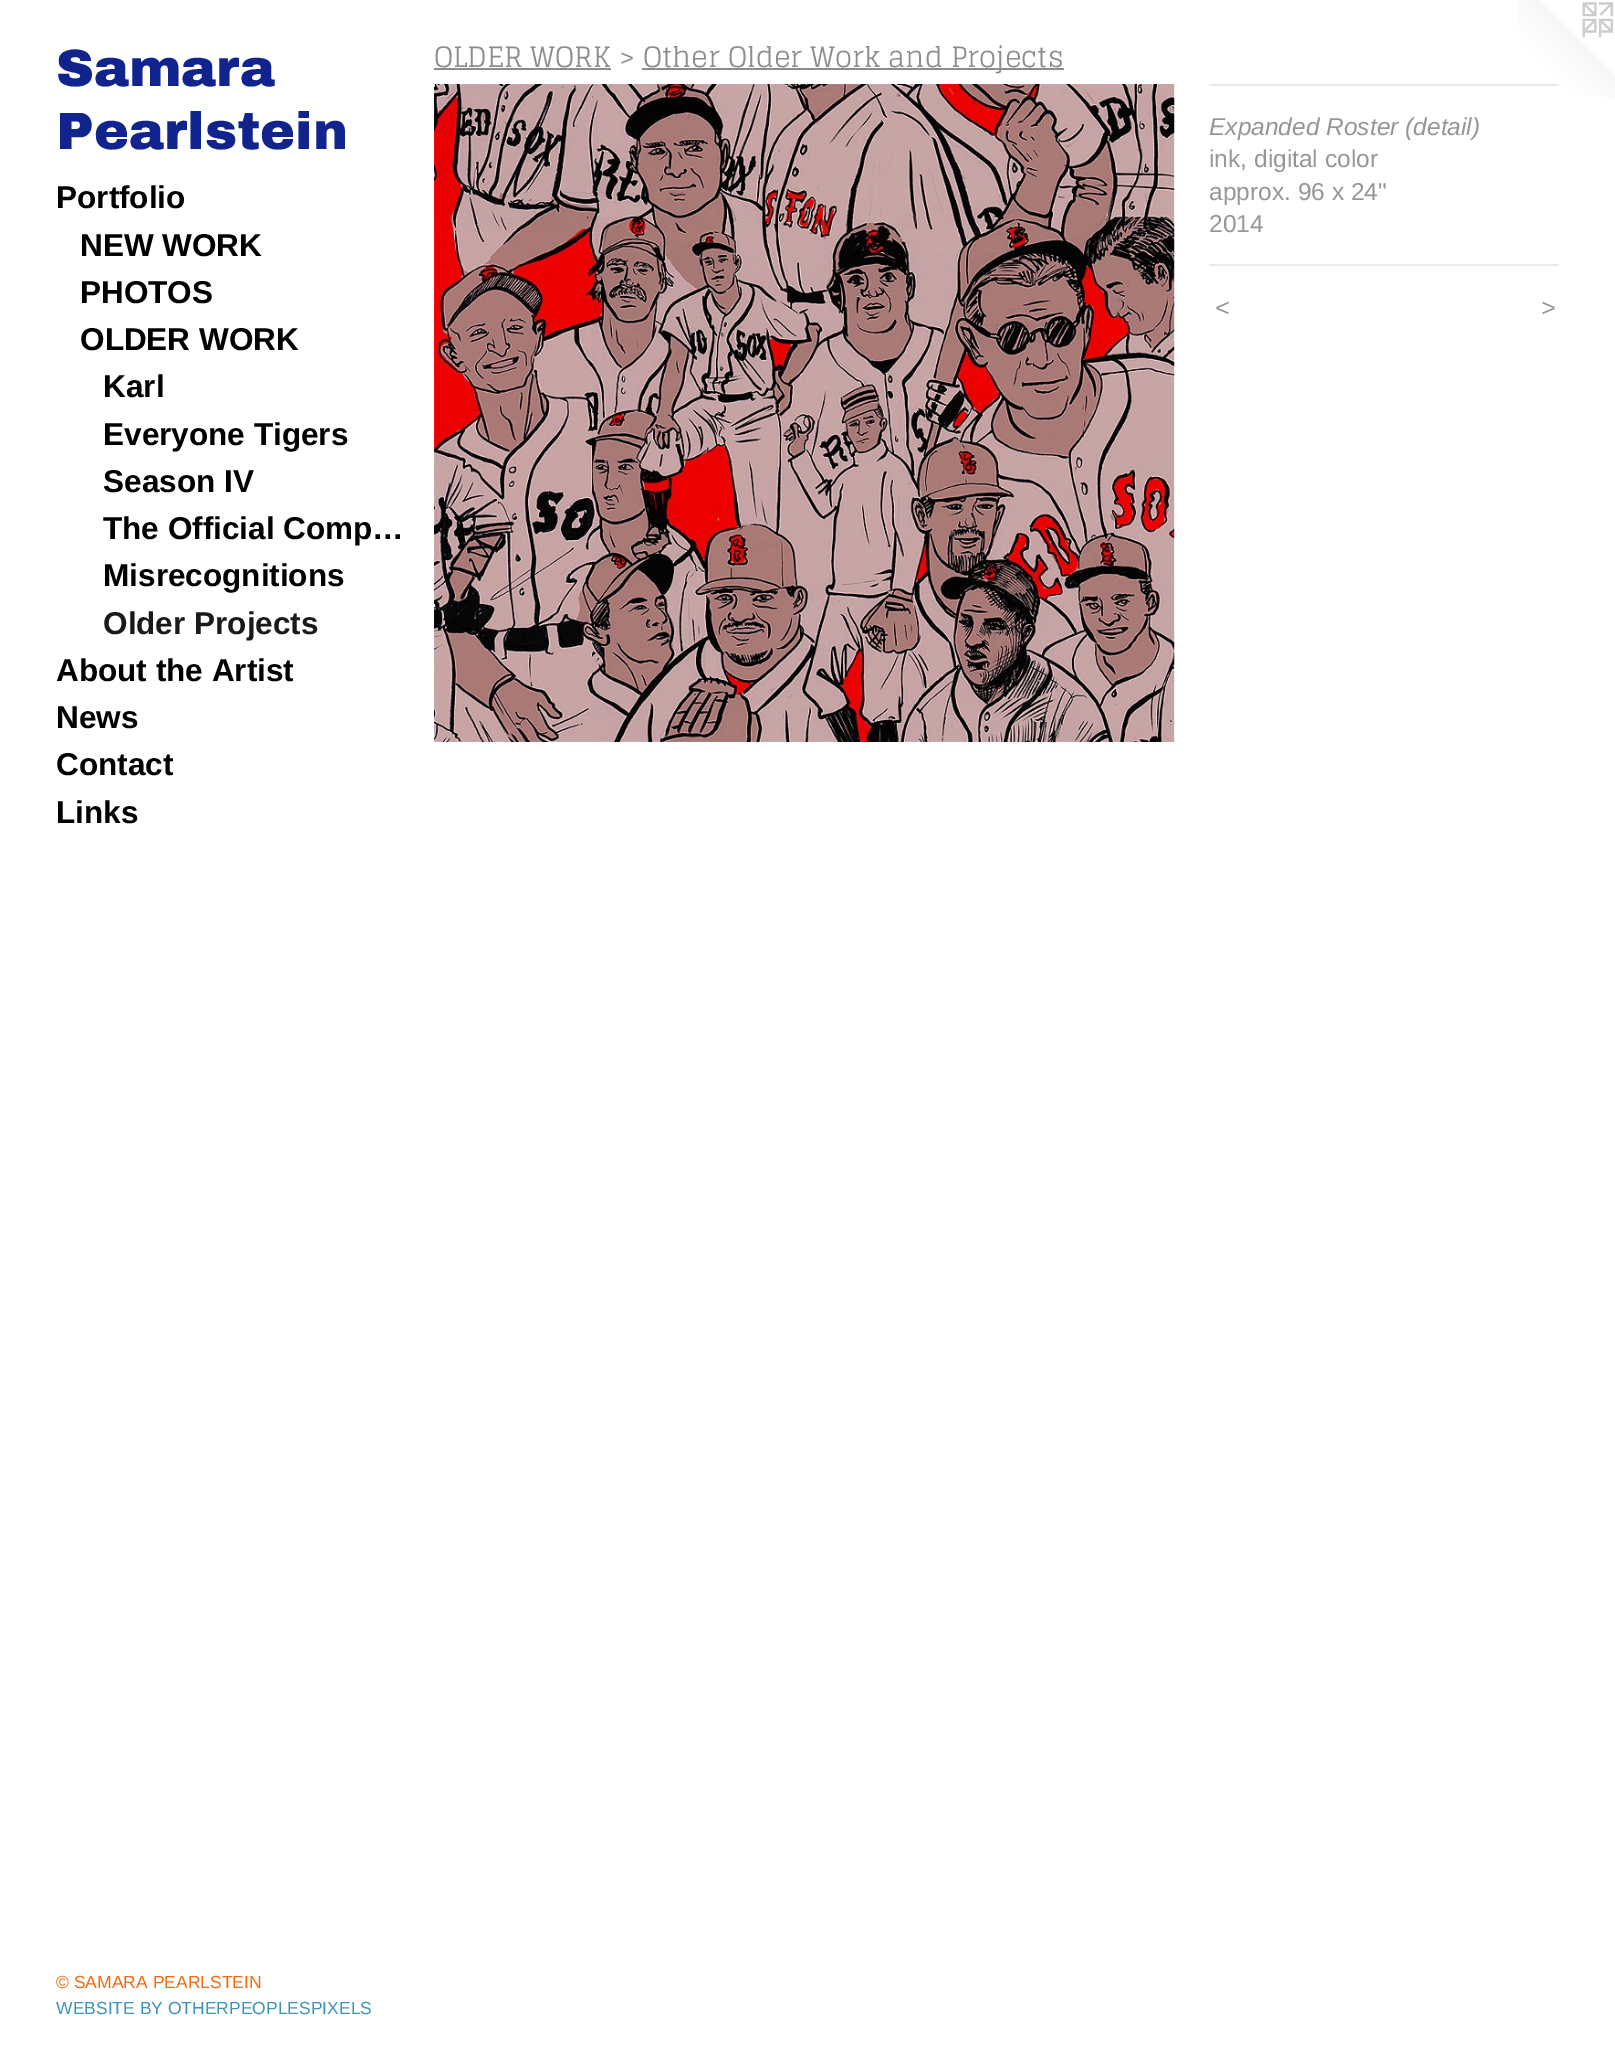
%!PS-Adobe-3.0
%%BoundingBox: 0 0 1615 2060
%%LanguageLevel: 3
%%Pages: 1
%%EndComments
%%BeginProlog
/setink { 3 { 255 div 3 1 roll } repeat setrgbcolor } def
/usefont { [ exch dup neg 0 0 3 -1 roll 0 0 ] selectfont } def
/drawtext { setink usefont moveto show } def
/fillbox { setink rectfill } def
/drawimage { 5 dict begin { /h /w /y /x /name } { exch def } forall
  gsave x y translate w h scale
  w h 8 [w 0 0 h 0 0] name (r) file false 3 colorimage grestore end } def
%%EndProlog
%%BeginSetup
<< /PageSize [1615 2060] >> setpagedevice
%%EndSetup
%%Page: 1 1
0 2060 translate 1 -1 scale
4 setmiterlimit
0 0 1615 2060 255 255 255 fillbox
(Samara) 56 86 /ArchivoBlack-Black 52.5 17 36 141 drawtext
(Pearlstein) 56 149 /ArchivoBlack-Black 52.5 17 36 141 drawtext
(Portfolio) 56 208 /LiberationSans-Bold 31.5 0 0 0 drawtext
(NEW WORK) 80 256 /LiberationSans-Bold 31.5 0 0 0 drawtext
(PHOTOS) 80 303 /LiberationSans-Bold 31.5 0 0 0 drawtext
(OLDER WORK) 80 350 /LiberationSans-Bold 31.5 0 0 0 drawtext
(Karl) 103 397 /LiberationSans-Bold 31.5 0 0 0 drawtext
(Everyone Tigers) 103 445 /LiberationSans-Bold 31.5 0 0 0 drawtext
(Season IV) 103 492 /LiberationSans-Bold 31.5 0 0 0 drawtext
(The Official Comp…) 103 539 /LiberationSans-Bold 31.5 0 0 0 drawtext
(Misrecognitions) 103 586 /LiberationSans-Bold 31.5 0 0 0 drawtext
(Older Projects) 103 634 /LiberationSans-Bold 31.5 26 26 26 drawtext
(About the Artist) 56 681 /LiberationSans-Bold 31.5 0 0 0 drawtext
(News) 56 728 /LiberationSans-Bold 31.5 0 0 0 drawtext
(Contact) 56 775 /LiberationSans-Bold 31.5 0 0 0 drawtext
(Links) 56 823 /LiberationSans-Bold 31.5 0 0 0 drawtext
(© SAMARA PEARLSTEIN) 56 1988 /LiberationSans-Regular 17.5 244 105 16 drawtext
(WEBSITE BY OTHERPEOPLESPIXELS) 56 2014 /LiberationSans-Regular 17.5 59 148 186 drawtext
(OLDER WORK >) 434 67 /Glegoo-Regular 28 140 140 140 drawtext
434 68 177 2 140 140 140 fillbox
642 68 422 2 140 140 140 fillbox
(Other Older Work and Projects) 643 67 /Glegoo-Regular 28 140 140 140 drawtext
(assets/img1.rgb) 434 84 741 658 drawimage
(assets/img2.rgb) 1518 0 97 97 drawimage
1209 84 350 2 234 234 234 fillbox
(Expanded Roster \(detail\)) 1209 135 /LiberationSans-Italic 24.5 150 150 150 drawtext
(ink, digital color) 1209 167 /LiberationSans-Regular 24.5 150 150 150 drawtext
(approx. 96 x 24") 1209 200 /LiberationSans-Regular 24.5 150 150 150 drawtext
(2014) 1209 232 /LiberationSans-Regular 24.5 150 150 150 drawtext
1209 264 350 2 234 234 234 fillbox
/LiberationSans-Italic 24.5 usefont
150 150 150 setink
1215 316 moveto 2 0 (<) ashow
1541 316 moveto 2 0 (>) ashow
showpage
%%EOF
